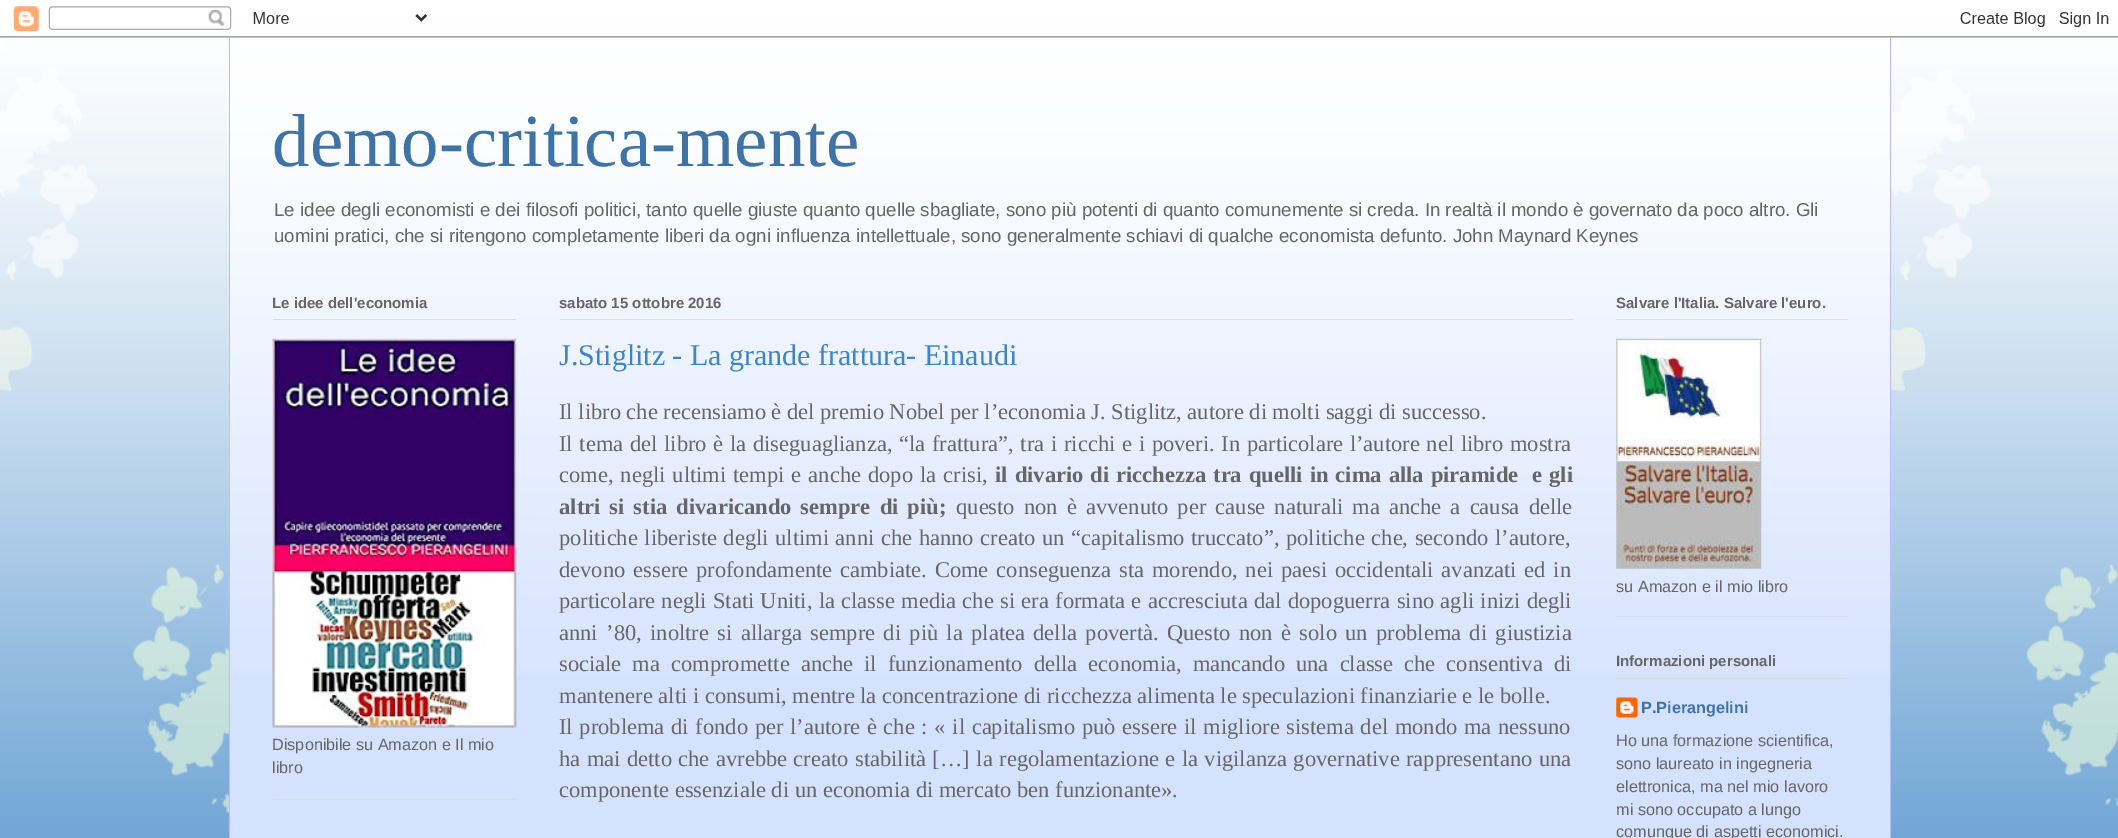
%!PS-Adobe-3.0
%%BoundingBox: 0 0 2118 838
%%LanguageLevel: 3
%%Pages: 1
%%EndComments
%%BeginProlog
/setink { 3 { 255 div 3 1 roll } repeat setrgbcolor } def
/usefont { [ exch dup neg 0 0 3 -1 roll 0 0 ] selectfont } def
/drawtext { setink usefont moveto show } def
/fillbox { setink rectfill } def
/drawimage { 5 dict begin { /h /w /y /x /name } { exch def } forall
  gsave x y translate w h scale
  w h 8 [w 0 0 h 0 0] name (r) file false 3 colorimage grestore end } def
%%EndProlog
%%BeginSetup
<< /PageSize [2118 838] >> setpagedevice
%%EndSetup
%%Page: 1 1
0 838 translate 1 -1 scale
4 setmiterlimit
0 0 2118 838 61 133 198 fillbox
(assets/img1.rgb) 0 0 2118 838 drawimage
(assets/img2.rgb) 0 6 2118 32 drawimage
230 46 1660 792 212 225 255 fillbox
(assets/img3.rgb) 228 38 1664 639 drawimage
1890 38 1 800 187 187 255 fillbox
229 38 1 800 187 187 255 fillbox
(demo-critica-mente) 272 166 /LiberationSerif-Regular 75 61 116 165 drawtext
(Le idee degli economisti e dei filosofi politici, tanto quelle giuste quanto quelle sbagliate, sono più potenti di quanto comunemente si creda. In realtà il mondo è governato da poco altro. Gli) 274 216 /LiberationSans-Regular 18.7 102 102 102 drawtext
(uomini pratici, che si ritengono completamente liberi da ogni influenza intellettuale, sono generalmente schiavi di qualche economista defunto. John Maynard Keynes) 274 242 /LiberationSans-Regular 18.7 102 102 102 drawtext
273 799 243 1 219 219 219 fillbox
273 319 243 1 219 219 219 fillbox
(Le idee dell'economia) 272 308 /LiberationSans-Bold 15 102 102 102 drawtext
(assets/img4.rgb) 272 338 245 390 drawimage
(Disponibile su Amazon e Il mio) 272 750 /LiberationSans-Regular 16.25 102 102 102 drawtext
(libro) 272 773 /LiberationSans-Regular 16.25 102 102 102 drawtext
560 319 1013 1 219 219 219 fillbox
(sabato 15 ottobre 2016) 559 308 /LiberationSans-Bold 15 102 102 102 drawtext
(J.Stiglitz - La grande frattura- Einaudi) 559 365 /LiberationSerif-Regular 30 61 133 198 drawtext
(Il libro che recensiamo è del premio Nobel per l’economia J. Stiglitz, autore di molti saggi di successo.) 559 419 /LiberationSerif-Regular 22.5 102 102 102 drawtext
559 451 moveto 1.1 0 32 (Il tema del libro è la diseguaglianza, “la frattura”, tra i ricchi e i poveri. In particolare l’autore nel libro mostra) widthshow
559 482 moveto 1.4 0 32 (come, negli ultimi tempi e anche dopo la crisi,) widthshow
/LiberationSerif-Bold 22.5 usefont
995 482 moveto 1.4 0 32 (il divario di ricchezza tra quelli in cima alla piramide  e gli) widthshow
559 514 moveto 3.5 0 32 (altri si stia divaricando sempre di più;) widthshow
/LiberationSerif-Regular 22.5 usefont
956 514 moveto 3.5 0 32 (questo non è avvenuto per cause naturali ma anche a causa delle) widthshow
559 545 moveto 1 0 32 (politiche liberiste degli ultimi anni che hanno creato un “capitalismo truccato”, politiche che, secondo l’autore,) widthshow
559 577 moveto 2.25 0 32 (devono essere profondamente cambiate. Come conseguenza sta morendo, nei paesi occidentali avanzati ed in) widthshow
559 608 moveto 0.7 0 32 (particolare negli Stati Uniti, la classe media che si era formata e accresciuta dal dopoguerra sino agli inizi degli) widthshow
559 640 moveto 2.75 0 32 (anni ’80, inoltre si allarga sempre di più la platea della povertà. Questo non è solo un problema di giustizia) widthshow
559 671 moveto 5.4 0 32 (sociale ma compromette anche il funzionamento della economia, mancando una classe che consentiva di) widthshow
(mantenere alti i consumi, mentre la concentrazione di ricchezza alimenta le speculazioni finanziarie e le bolle.) 559 703 /LiberationSerif-Regular 22.5 102 102 102 drawtext
559 734 moveto 1.1 0 32 (Il problema di fondo per l’autore è che : « il capitalismo può essere il migliore sistema del mondo ma nessuno) widthshow
559 766 moveto 0.8 0 32 (ha mai detto che avrebbe creato stabilità […] la regolamentazione e la vigilanza governative rappresentano una) widthshow
(componente essenziale di un economia di mercato ben funzionante».) 559 797 /LiberationSerif-Regular 22.5 102 102 102 drawtext
1616 616 232 1 219 219 219 fillbox
1616 319 232 1 219 219 219 fillbox
(Salvare l'Italia. Salvare l'euro.) 1616 308 /LiberationSans-Bold 15 102 102 102 drawtext
(assets/img5.rgb) 1616 338 146 231 drawimage
(su Amazon e il mio libro) 1616 592 /LiberationSans-Regular 16.25 102 102 102 drawtext
1616 678 232 1 219 219 219 fillbox
(Informazioni personali) 1616 666 /LiberationSans-Bold 15 102 102 102 drawtext
(assets/img6.rgb) 1616 697 22 21 drawimage
(P.Pierangelini) 1641 713 /LiberationSans-Bold 16.25 61 116 165 drawtext
(Ho una formazione scientifica,) 1616 746 /LiberationSans-Regular 16.25 102 102 102 drawtext
(sono laureato in ingegneria) 1616 769 /LiberationSans-Regular 16.25 102 102 102 drawtext
(elettronica, ma nel mio lavoro) 1616 792 /LiberationSans-Regular 16.25 102 102 102 drawtext
(mi sono occupato a lungo) 1616 815 /LiberationSans-Regular 16.25 102 102 102 drawtext
(comunque di aspetti economici.) 1616 837 /LiberationSans-Regular 16.25 102 102 102 drawtext
showpage
%%EOF
